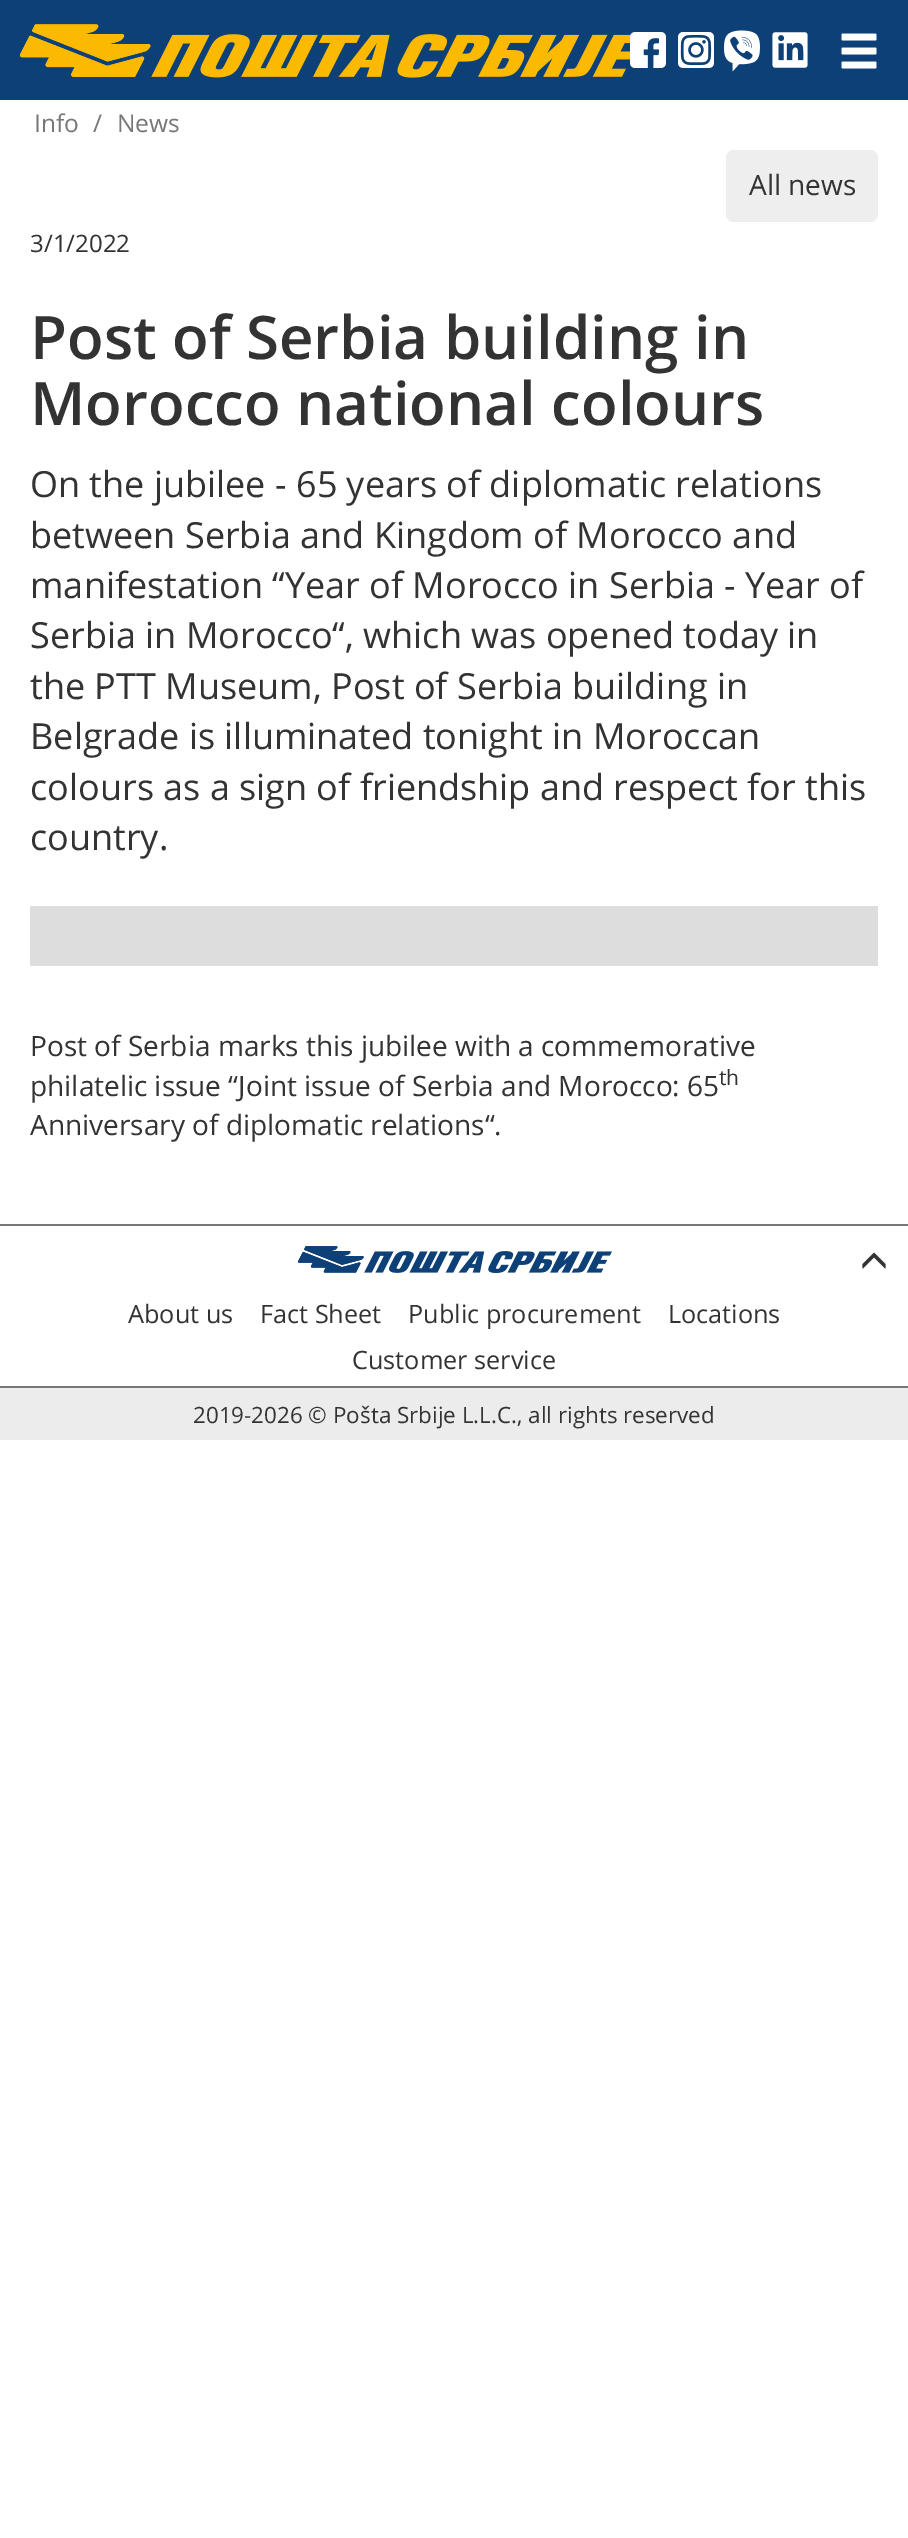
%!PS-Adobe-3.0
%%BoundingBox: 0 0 908 2538
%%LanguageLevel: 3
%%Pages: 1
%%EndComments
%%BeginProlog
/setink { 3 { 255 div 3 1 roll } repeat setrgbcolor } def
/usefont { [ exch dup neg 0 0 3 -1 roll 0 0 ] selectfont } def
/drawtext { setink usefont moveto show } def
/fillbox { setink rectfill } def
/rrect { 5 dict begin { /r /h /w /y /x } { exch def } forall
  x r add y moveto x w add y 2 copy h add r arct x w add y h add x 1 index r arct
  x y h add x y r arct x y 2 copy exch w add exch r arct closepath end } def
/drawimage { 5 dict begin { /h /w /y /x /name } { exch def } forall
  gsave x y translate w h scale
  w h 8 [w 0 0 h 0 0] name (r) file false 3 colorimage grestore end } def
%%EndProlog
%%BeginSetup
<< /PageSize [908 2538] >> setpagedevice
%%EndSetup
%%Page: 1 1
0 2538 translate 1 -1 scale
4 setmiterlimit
0 0 908 2538 255 255 255 fillbox
0 0 908 100 12 64 118 fillbox
(assets/img1.rgb) 20 24 611 54 drawimage
(assets/img2.rgb) 630 32 36 36 drawimage
(assets/img3.rgb) 678 32 36 36 drawimage
(assets/img4.rgb) 724 30 36 42 drawimage
(assets/img5.rgb) 772 32 36 36 drawimage
(assets/img6.rgb) 841 33 36 36 drawimage
(Info) 34 132 /OpenSans-Regular 24.5 119 119 119 drawtext
(/) 93 132 /OpenSans-Regular 24.5 119 119 119 drawtext
(News) 117 132 /OpenSans-Regular 24.5 119 119 119 drawtext
238 238 238 setink
726 150 152 72 8 rrect fill
(All news) 749 195 /OpenSans-Regular 28 51 51 51 drawtext
(3/1/2022) 30 252 /OpenSans-Regular 24 51 51 51 drawtext
(Post of Serbia building in) 30 359 /OpenSans-SemiBold 60 51 51 51 drawtext
(Morocco national colours) 30 425 /OpenSans-SemiBold 60 51 51 51 drawtext
(On the jubilee - 65 years of diplomatic relations) 30 497 /OpenSans-Regular 36 51 51 51 drawtext
(between Serbia and Kingdom of Morocco and) 30 548 /OpenSans-Regular 36 51 51 51 drawtext
(manifestation “Year of Morocco in Serbia - Year of) 30 598 /OpenSans-Regular 36 51 51 51 drawtext
(Serbia in Morocco“, which was opened today in) 30 648 /OpenSans-Regular 36 51 51 51 drawtext
(the PTT Museum, Post of Serbia building in) 30 699 /OpenSans-Regular 36 51 51 51 drawtext
(Belgrade is illuminated tonight in Moroccan) 30 749 /OpenSans-Regular 36 51 51 51 drawtext
(colours as a sign of friendship and respect for this) 30 800 /OpenSans-Regular 36 51 51 51 drawtext
(country.) 30 850 /OpenSans-Regular 36 51 51 51 drawtext
30 906 848 60 221 221 221 fillbox
(Post of Serbia marks this jubilee with a commemorative) 30 1056 /OpenSans-Regular 28 51 51 51 drawtext
(philatelic issue “Joint issue of Serbia and Morocco: 65) 30 1096 /OpenSans-Regular 28 51 51 51 drawtext
(th) 719 1085 /OpenSans-Regular 21 51 51 51 drawtext
(Anniversary of diplomatic relations“.) 30 1135 /OpenSans-Regular 28 51 51 51 drawtext
0 1224 908 2 119 119 119 fillbox
0 1386 908 2 119 119 119 fillbox
(assets/img7.rgb) 298 1246 314 27 drawimage
(assets/img8.rgb) 862 1252 24 17 drawimage
(About us) 128 1323 /OpenSans-Regular 25.25 51 51 51 drawtext
(Fact Sheet) 260 1323 /OpenSans-Regular 25.25 51 51 51 drawtext
(Public procurement) 408 1323 /OpenSans-Regular 25.25 51 51 51 drawtext
(Locations) 668 1323 /OpenSans-Regular 25.25 51 51 51 drawtext
(Customer service) 352 1369 /OpenSans-Regular 25.25 51 51 51 drawtext
0 1388 908 52 236 236 236 fillbox
(2019-2026 © Pošta Srbije L.L.C., all rights reserved) 193 1423 /OpenSans-Regular 22.4 51 51 51 drawtext
showpage
%%EOF
